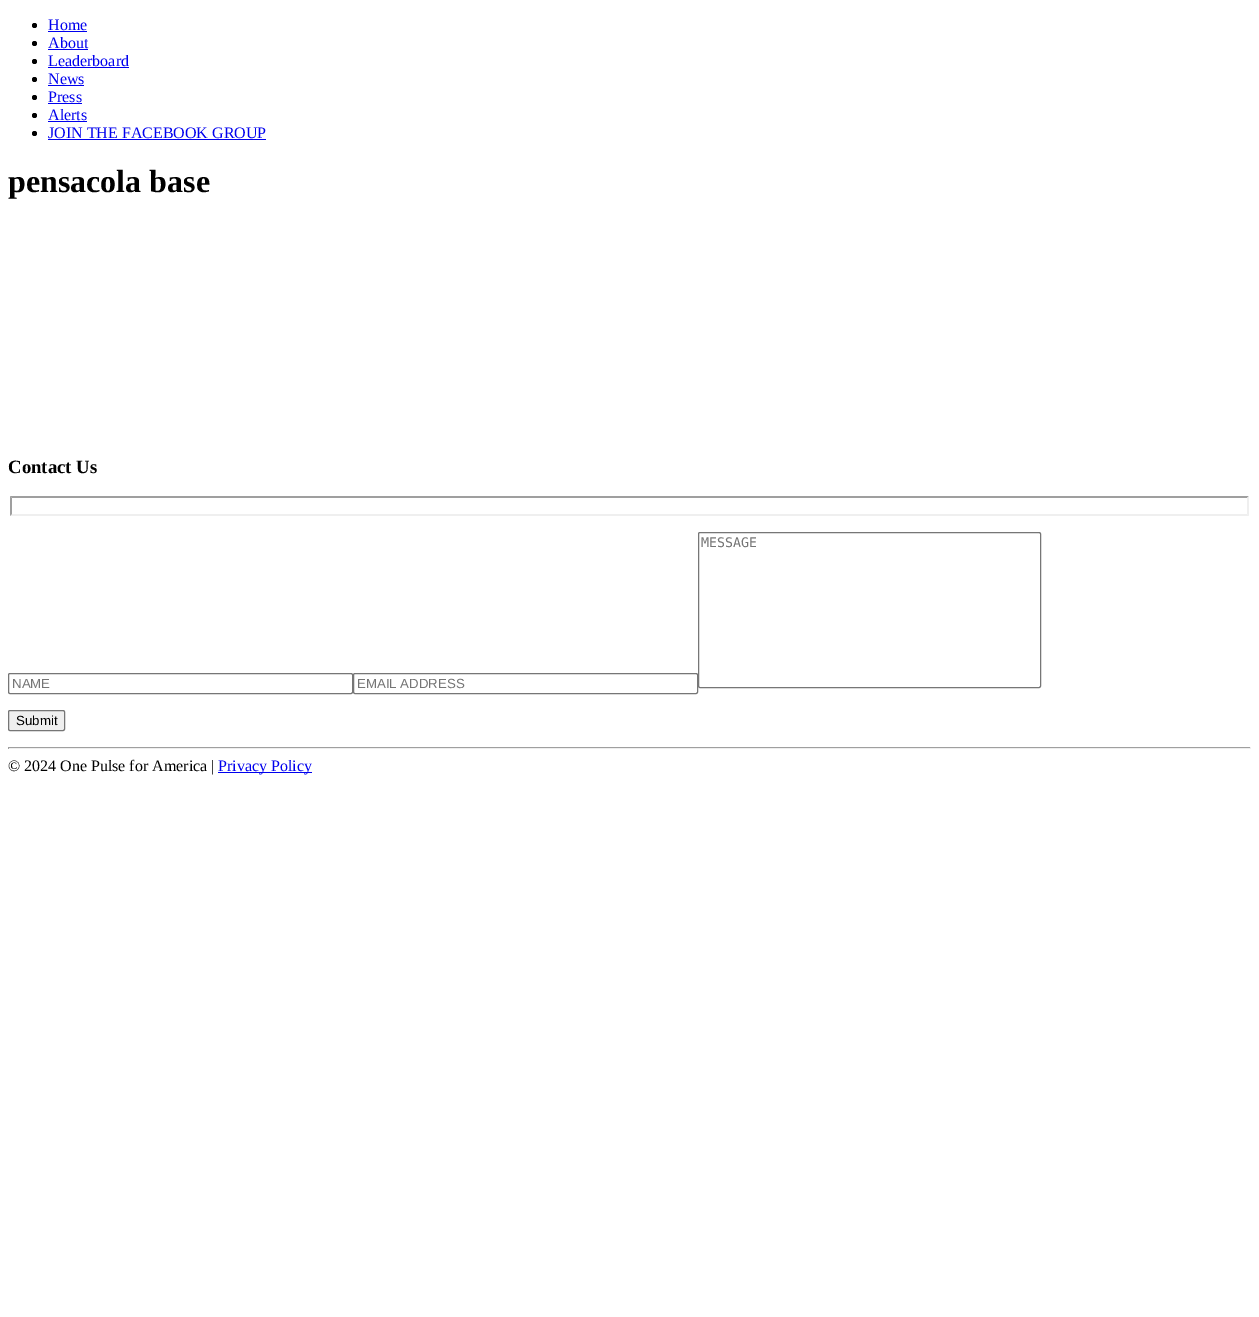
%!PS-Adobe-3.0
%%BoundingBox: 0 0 1259 1317
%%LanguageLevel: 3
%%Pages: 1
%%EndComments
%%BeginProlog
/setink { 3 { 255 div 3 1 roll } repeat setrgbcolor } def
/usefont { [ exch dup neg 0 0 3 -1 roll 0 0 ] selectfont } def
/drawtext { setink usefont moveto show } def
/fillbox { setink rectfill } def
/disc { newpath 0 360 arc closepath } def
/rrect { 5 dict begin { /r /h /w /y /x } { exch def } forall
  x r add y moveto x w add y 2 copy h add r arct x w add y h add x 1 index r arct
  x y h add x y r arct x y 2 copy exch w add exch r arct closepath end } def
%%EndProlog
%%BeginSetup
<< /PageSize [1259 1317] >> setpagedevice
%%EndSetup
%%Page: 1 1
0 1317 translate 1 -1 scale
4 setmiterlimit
0 0 1259 1317 255 255 255 fillbox
0 0 0 setink
34.5 25.5 2.5 disc fill
(Home) 48 30 /LiberationSerif-Regular 16 0 0 238 drawtext
48 31 39 1 0 0 238 fillbox
0 0 0 setink
34.5 43.5 2.5 disc fill
(About) 48 48 /LiberationSerif-Regular 16 0 0 238 drawtext
48 49 40 1 0 0 238 fillbox
0 0 0 setink
34.5 61.5 2.5 disc fill
(Leaderboard) 48 66 /LiberationSerif-Regular 16 0 0 238 drawtext
48 67 81 1 0 0 238 fillbox
0 0 0 setink
34.5 79.5 2.5 disc fill
(News) 48 84 /LiberationSerif-Regular 16 0 0 238 drawtext
48 85 36 1 0 0 238 fillbox
0 0 0 setink
34.5 97.5 2.5 disc fill
(Press) 48 102 /LiberationSerif-Regular 16 0 0 238 drawtext
48 103 34 1 0 0 238 fillbox
0 0 0 setink
34.5 115.5 2.5 disc fill
(Alerts) 48 120 /LiberationSerif-Regular 16 0 0 238 drawtext
48 121 39 1 0 0 238 fillbox
0 0 0 setink
34.5 133.5 2.5 disc fill
(JOIN THE FACEBOOK GROUP) 48 138 /LiberationSerif-Regular 16 0 0 238 drawtext
48 139 218 1 0 0 238 fillbox
(pensacola base) 8 192 /LiberationSerif-Bold 32 0 0 0 drawtext
(Contact Us) 8 473 /LiberationSerif-Bold 18.75 0 0 0 drawtext
159 159 159 setink
10 496 moveto 1249 496 lineto 1247 498 lineto 12 498 lineto closepath fill
239 239 239 setink
1249 496 moveto 1249 516 lineto 1247 514 lineto 1247 498 lineto closepath fill
1249 516 moveto 10 516 lineto 12 514 lineto 1247 514 lineto closepath fill
159 159 159 setink
10 516 moveto 10 496 lineto 12 498 lineto 12 514 lineto closepath fill
118 118 118 setink
698.5 532.5 342 155 1.5 rrect stroke
(MESSAGE) 701 547 /DejaVuSansMono-Regular 13.25 117 117 117 drawtext
118 118 118 setink
8.5 673.5 344 20 1.5 rrect stroke
(NAME) 12 688 /LiberationSans-Regular 13.25 117 117 117 drawtext
118 118 118 setink
353.5 673.5 344 20 1.5 rrect stroke
(EMAIL ADDRESS) 357 688 /LiberationSans-Regular 13.25 117 117 117 drawtext
239 239 239 setink
8.5 710.5 56 20 1.5 rrect gsave fill grestore
118 118 118 setink
stroke
(Submit) 16 725 /LiberationSans-Regular 13.25 0 0 0 drawtext
8 747 1243 1 159 159 159 fillbox
1250 747 1 2 238 238 238 fillbox
8 748 1243 1 238 238 238 fillbox
8 747 1 2 159 159 159 fillbox
(© 2024 One Pulse for America |) 8 771 /LiberationSerif-Regular 16 0 0 0 drawtext
218 772 94 1 0 0 238 fillbox
(Privacy Policy) 218 771 /LiberationSerif-Regular 16 0 0 238 drawtext
showpage
%%EOF
